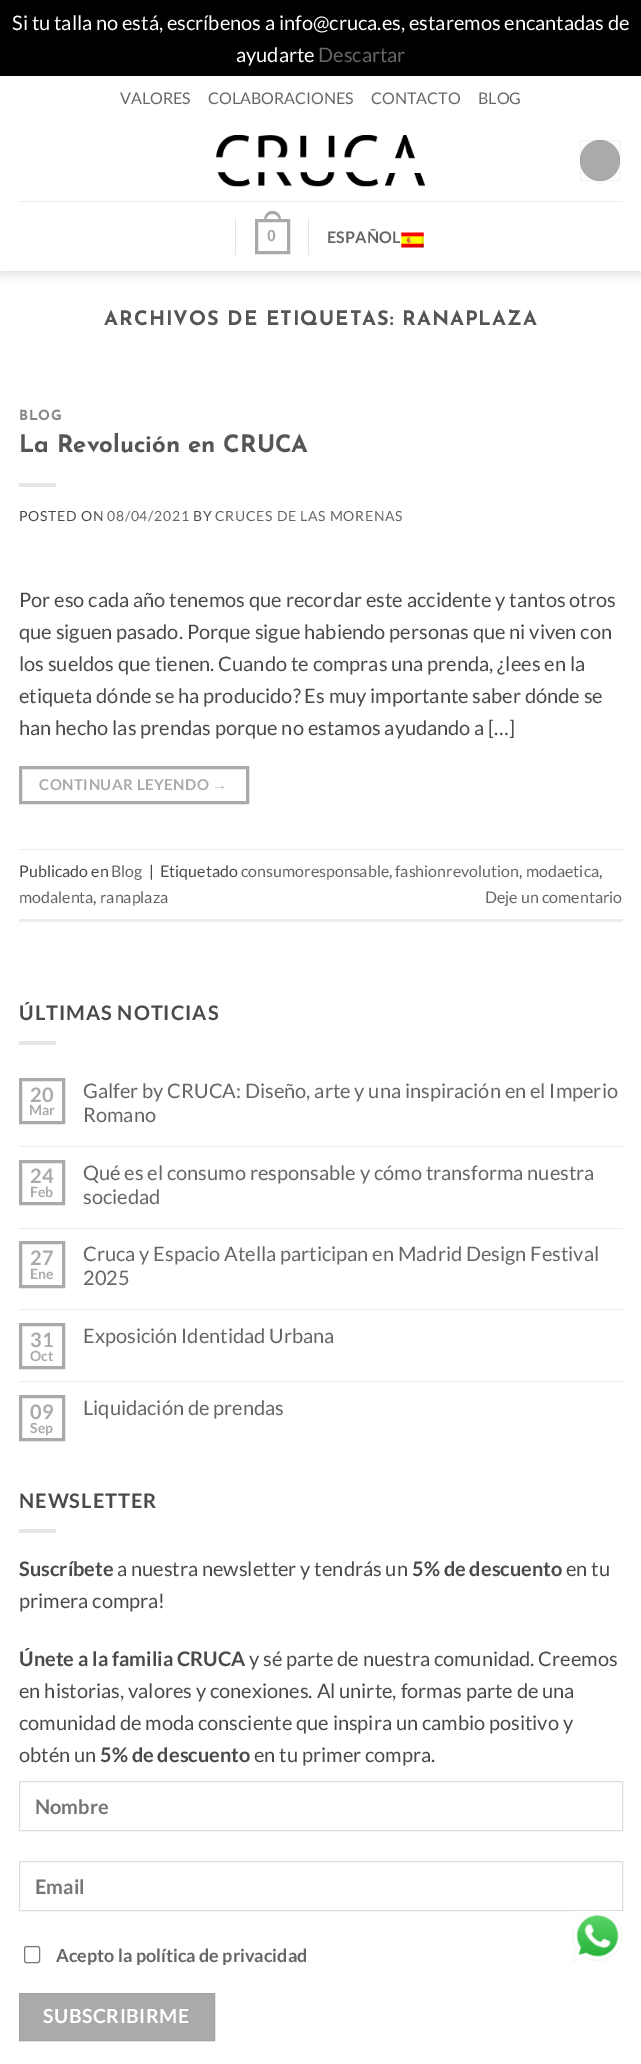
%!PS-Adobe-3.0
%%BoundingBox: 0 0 641 2064
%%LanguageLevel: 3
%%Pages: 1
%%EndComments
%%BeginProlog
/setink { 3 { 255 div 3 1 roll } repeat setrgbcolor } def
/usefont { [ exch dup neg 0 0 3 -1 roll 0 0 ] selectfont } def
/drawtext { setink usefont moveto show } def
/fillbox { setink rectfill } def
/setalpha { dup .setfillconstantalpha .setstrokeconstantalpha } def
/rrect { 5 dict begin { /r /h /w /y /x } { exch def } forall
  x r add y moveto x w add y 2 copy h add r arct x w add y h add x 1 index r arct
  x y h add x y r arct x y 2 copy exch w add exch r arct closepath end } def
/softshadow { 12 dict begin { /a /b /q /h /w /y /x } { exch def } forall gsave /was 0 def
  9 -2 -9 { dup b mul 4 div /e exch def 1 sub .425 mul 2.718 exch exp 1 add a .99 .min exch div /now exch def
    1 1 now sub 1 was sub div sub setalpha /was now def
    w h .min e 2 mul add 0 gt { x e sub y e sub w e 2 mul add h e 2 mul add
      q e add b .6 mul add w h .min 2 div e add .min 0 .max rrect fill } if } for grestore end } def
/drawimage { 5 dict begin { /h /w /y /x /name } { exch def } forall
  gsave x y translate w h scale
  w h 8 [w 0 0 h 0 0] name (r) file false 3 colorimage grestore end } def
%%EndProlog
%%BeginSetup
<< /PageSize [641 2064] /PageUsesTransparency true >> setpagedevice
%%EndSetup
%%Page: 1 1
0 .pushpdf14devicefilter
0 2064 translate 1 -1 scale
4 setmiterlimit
0 0 641 2064 0 0 0 fillbox
(Si tu talla no está, escríbenos a info@cruca.es, estaremos encantadas de) 12 30 /Lato-Regular 20 255 255 255 drawtext
(ayudarte) 236 62 /Lato-Regular 20 255 255 255 drawtext
(Descartar) 318 62 /Lato-Regular 20 102 102 102 drawtext
0 271 641 1793 255 255 255 fillbox
0 0 0 setink
1 78 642 195 0 6 0.15 softshadow
0 76 641 195 255 255 255 fillbox
(VALORES) 120 104 /Lato-Regular 16 102 102 102 drawtext
(COLABORACIONES) 208 104 /Lato-Regular 16 102 102 102 drawtext
(CONTACTO) 371 104 /Lato-Regular 16 102 102 102 drawtext
(BLOG) 478 104 /Lato-Regular 16 102 102 102 drawtext
(assets/img1.rgb) 216 135 209 52 drawimage
170 170 170 setink
580 140 40 41 20 rrect fill
0.05 setalpha
0 0 0 setink
580.5 140.5 39 40 rectstroke
1 setalpha
19 201 604 1 237 237 237 fillbox
235 218 1 37 230 230 230 fillbox
170 170 170 setink
3 setlinewidth
256.5 220.5 32 32 rectstroke
272.5 211 moveto 278.5 211 281 216 281 221 curveto 264 221 lineto 264 216 266.5 211 272.5 211 curveto closepath 272.5 214 moveto 277 214 279 217.5 279 221 curveto 266 221 lineto 266 217.5 268 214 272.5 214 curveto closepath eofill
/LiberationSans-Bold 16 usefont
267 241 moveto 0.25 0 (0) ashow
308 218 1 37 230 230 230 fillbox
/Lato-Bold 16 usefont
102 102 102 setink
327 243 moveto 0.25 0 (ESPAÑOL) ashow
(assets/img2.rgb) 401 232 23 16 drawimage
/JosefinSans-Thin 20 usefont
85 85 85 setink
104 325 moveto 1 0 (ARCHIVOS DE ETIQUETAS: RANAPLAZA) ashow
/JosefinSans-Thin 14 usefont
133 133 133 setink
19 420 moveto 0.7 0 (BLOG) ashow
(La Revolución en CRUCA) 19 452 /JosefinSans-Thin 24 85 85 85 drawtext
19 483 37 4 230 230 230 fillbox
/Lato-Regular 14 usefont
74 74 74 setink
19 521 moveto 0.7 0 (POSTED ON) ashow
102 102 102 setink
107 521 moveto 0.7 0 (08/04/2021) ashow
74 74 74 setink
193 521 moveto 0.7 0 (BY) ashow
102 102 102 setink
215 521 moveto 0.7 0 (CRUCES DE LAS MORENAS) ashow
(Por eso cada año tenemos que recordar este accidente y tantos otros) 19 607 /Lato-Regular 20 74 74 74 drawtext
(que siguen pasado. Porque sigue habiendo personas que ni viven con) 19 639 /Lato-Regular 20 74 74 74 drawtext
(los sueldos que tienen. Cuando te compras una prenda, ¿lees en la) 19 671 /Lato-Regular 20 74 74 74 drawtext
(etiqueta dónde se ha producido? Es muy importante saber dónde se) 19 703 /Lato-Regular 20 74 74 74 drawtext
(han hecho las prendas porque no estamos ayudando a […]) 19 735 /Lato-Regular 20 74 74 74 drawtext
170 170 170 setink
20.5 767.5 227 35 rectstroke
/Lato-Bold 15 usefont
39 790 moveto 0.5 0 (CONTINUAR LEYENDO) ashow
/LiberationSans-Bold 15 usefont
212 790 moveto 0.5 0 (→) ashow
19 849 604 1 236 236 236 fillbox
19 919 604 3 236 236 236 fillbox
(Publicado en) 19 877 /Lato-Regular 16 74 74 74 drawtext
(Blog) 111 877 /Lato-Regular 16 102 102 102 drawtext
(|) 149 877 /Lato-Regular 16 74 74 74 drawtext
(Etiquetado) 160 877 /Lato-Regular 16 74 74 74 drawtext
(consumoresponsable) 241 877 /Lato-Regular 16 102 102 102 drawtext
(,) 389 877 /Lato-Regular 16 74 74 74 drawtext
(fashionrevolution) 395 877 /Lato-Regular 16 102 102 102 drawtext
(,) 519 877 /Lato-Regular 16 74 74 74 drawtext
(modaetica) 526 877 /Lato-Regular 16 102 102 102 drawtext
(,) 599 877 /Lato-Regular 16 74 74 74 drawtext
(modalenta) 19 903 /Lato-Regular 16 102 102 102 drawtext
(,) 93 903 /Lato-Regular 16 74 74 74 drawtext
(ranaplaza) 100 903 /Lato-Regular 16 102 102 102 drawtext
(Deje un comentario) 485 903 /Lato-Regular 16 102 102 102 drawtext
/Lato-Bold 20 usefont
74 74 74 setink
19 1020 moveto 1 0 (ÚLTIMAS NOTICIAS) ashow
19 1041 37 4 230 230 230 fillbox
170 170 170 setink
20.5 1079.5 43 43 rectstroke
(20) 30 1102 /Lato-Bold 20 170 170 170 drawtext
(Mar) 29 1115 /Lato-Bold 14 170 170 170 drawtext
(Galfer by CRUCA: Diseño, arte y una inspiración en el Imperio) 83 1098 /Lato-Regular 20 102 102 102 drawtext
(Romano) 83 1122 /Lato-Regular 20 102 102 102 drawtext
19 1146 604 1 236 236 236 fillbox
170 170 170 setink
20.5 1161.5 43 42 rectstroke
(24) 30 1183 /Lato-Bold 20 170 170 170 drawtext
(Feb) 30 1197 /Lato-Bold 14 170 170 170 drawtext
(Qué es el consumo responsable y cómo transforma nuestra) 83 1180 /Lato-Regular 20 102 102 102 drawtext
(sociedad) 83 1204 /Lato-Regular 20 102 102 102 drawtext
19 1228 604 1 236 236 236 fillbox
170 170 170 setink
20.5 1242.5 43 44 rectstroke
(27) 30 1265 /Lato-Bold 20 170 170 170 drawtext
(Ene) 30 1279 /Lato-Bold 14 170 170 170 drawtext
(Cruca y Espacio Atella participan en Madrid Design Festival) 83 1261 /Lato-Regular 20 102 102 102 drawtext
(2025) 83 1285 /Lato-Regular 20 102 102 102 drawtext
19 1309 604 1 236 236 236 fillbox
170 170 170 setink
20.5 1324.5 43 43 rectstroke
(31) 30 1347 /Lato-Bold 20 170 170 170 drawtext
(Oct) 30 1361 /Lato-Bold 14 170 170 170 drawtext
(Exposición Identidad Urbana) 83 1343 /Lato-Regular 20 102 102 102 drawtext
19 1381 604 1 236 236 236 fillbox
170 170 170 setink
20.5 1396.5 43 43 rectstroke
(09) 30 1419 /Lato-Bold 20 170 170 170 drawtext
(Sep) 30 1433 /Lato-Bold 14 170 170 170 drawtext
(Liquidación de prendas) 83 1415 /Lato-Regular 20 102 102 102 drawtext
/Lato-Bold 20 usefont
74 74 74 setink
19 1508 moveto 1 0 (NEWSLETTER) ashow
19 1529 37 4 230 230 230 fillbox
(Suscríbete) 19 1576 /Lato-Bold 20 74 74 74 drawtext
(a nuestra newsletter y tendrás un) 117 1576 /Lato-Regular 20 74 74 74 drawtext
(5% de descuento) 412 1576 /Lato-Bold 20 74 74 74 drawtext
(en tu) 566 1576 /Lato-Regular 20 74 74 74 drawtext
(primera compra!) 19 1608 /Lato-Regular 20 74 74 74 drawtext
(Únete a la familia CRUCA) 19 1666 /Lato-Bold 20 74 74 74 drawtext
(y sé parte de nuestra comunidad. Creemos) 249 1666 /Lato-Regular 20 74 74 74 drawtext
(en historias, valores y conexiones. Al unirte, formas parte de una) 19 1698 /Lato-Regular 20 74 74 74 drawtext
(comunidad de moda consciente que inspira un cambio positivo y) 19 1730 /Lato-Regular 20 74 74 74 drawtext
(obtén un) 19 1762 /Lato-Regular 20 74 74 74 drawtext
(5% de descuento) 100 1762 /Lato-Bold 20 74 74 74 drawtext
(en tu primer compra.) 254 1762 /Lato-Regular 20 74 74 74 drawtext
221 221 221 setink
1 setlinewidth
19.5 1781.5 603 49 rectstroke
(Nombre) 35 1814 /Lato-Bold 20 117 117 117 drawtext
221 221 221 setink
19.5 1861.5 603 49 rectstroke
(Email) 35 1894 /Lato-Bold 20 117 117 117 drawtext
118 118 118 setink
24.5 1946.5 15 16 2 rrect stroke
(Acepto la política de privacidad) 56 1962 /Lato-Bold 18 102 102 102 drawtext
170 170 170 setink
19.5 1993.5 moveto 214.5 1993.5 lineto 214.5 2040.5 lineto 19.5 2040.5 lineto closepath gsave fill grestore
162 162 162 setink
stroke
/Lato-Bold 19.5 usefont
255 255 255 setink
43 2023 moveto 0.5 0 (SUBSCRIBIRME) ashow
(assets/img3.rgb) 572 1911 51 51 drawimage
.poppdf14devicefilter showpage
%%EOF
